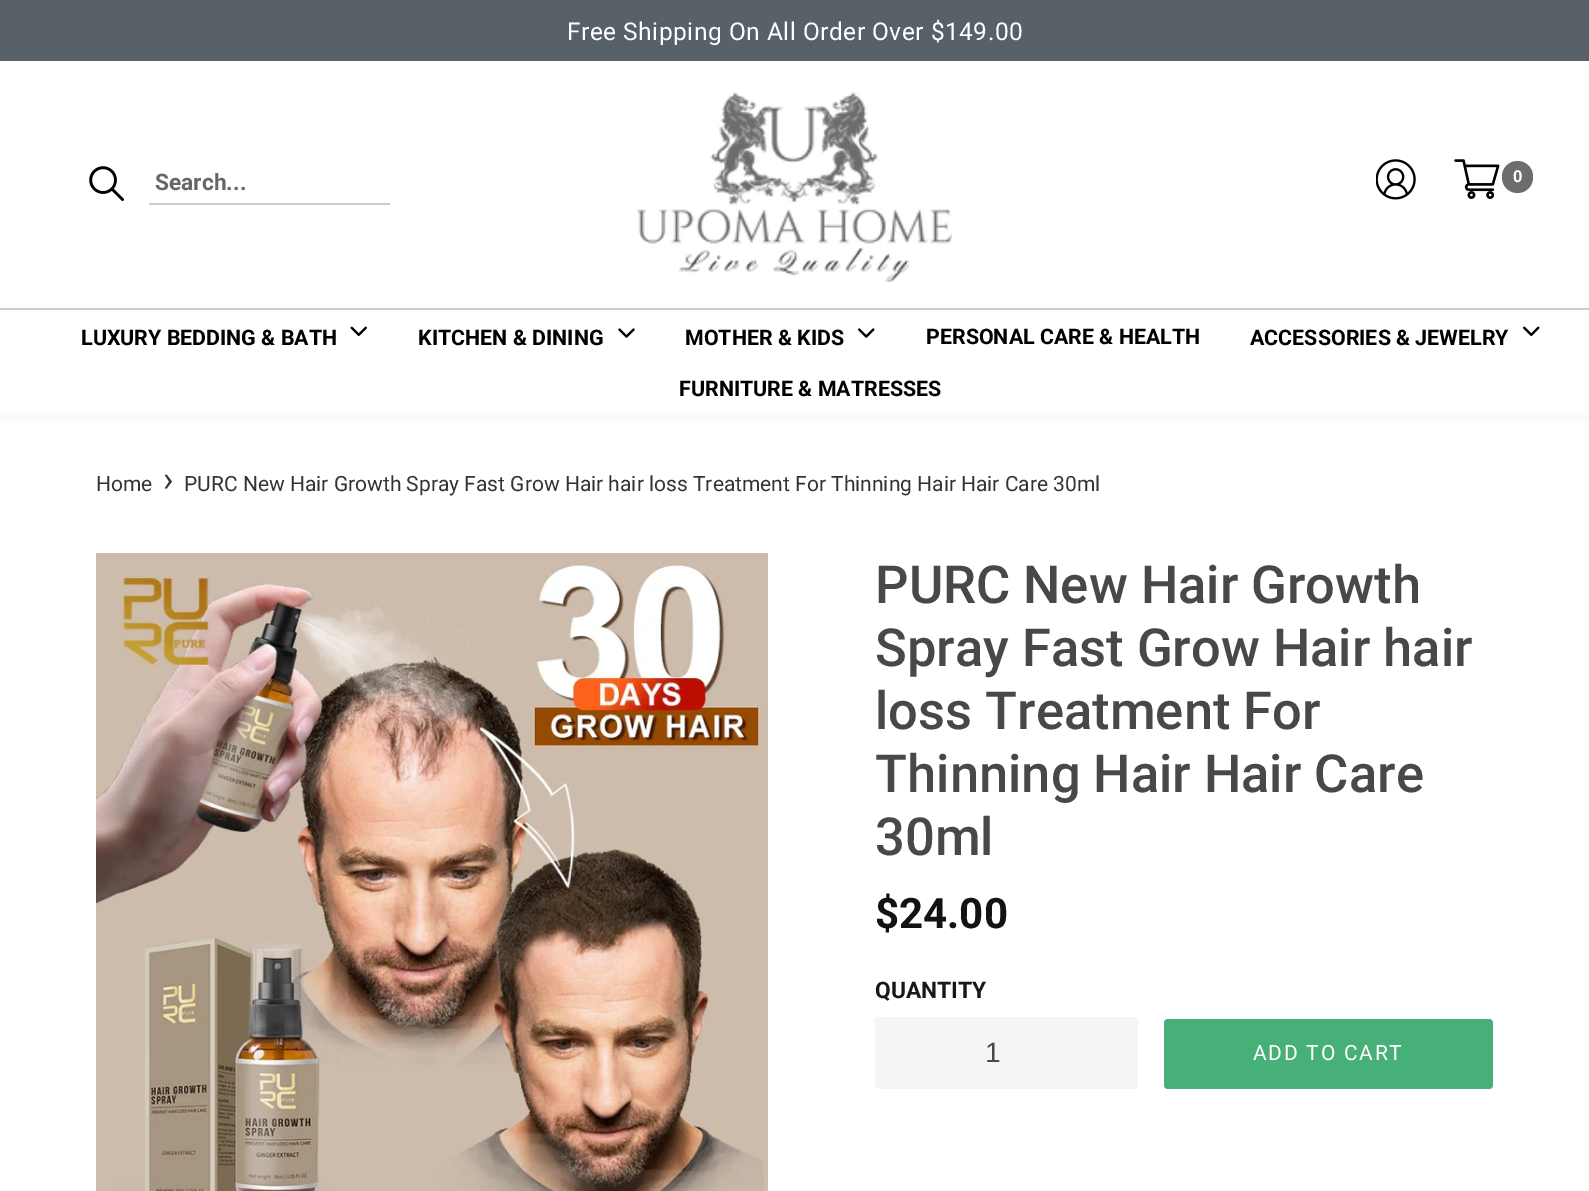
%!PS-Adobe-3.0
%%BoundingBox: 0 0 1589 1191
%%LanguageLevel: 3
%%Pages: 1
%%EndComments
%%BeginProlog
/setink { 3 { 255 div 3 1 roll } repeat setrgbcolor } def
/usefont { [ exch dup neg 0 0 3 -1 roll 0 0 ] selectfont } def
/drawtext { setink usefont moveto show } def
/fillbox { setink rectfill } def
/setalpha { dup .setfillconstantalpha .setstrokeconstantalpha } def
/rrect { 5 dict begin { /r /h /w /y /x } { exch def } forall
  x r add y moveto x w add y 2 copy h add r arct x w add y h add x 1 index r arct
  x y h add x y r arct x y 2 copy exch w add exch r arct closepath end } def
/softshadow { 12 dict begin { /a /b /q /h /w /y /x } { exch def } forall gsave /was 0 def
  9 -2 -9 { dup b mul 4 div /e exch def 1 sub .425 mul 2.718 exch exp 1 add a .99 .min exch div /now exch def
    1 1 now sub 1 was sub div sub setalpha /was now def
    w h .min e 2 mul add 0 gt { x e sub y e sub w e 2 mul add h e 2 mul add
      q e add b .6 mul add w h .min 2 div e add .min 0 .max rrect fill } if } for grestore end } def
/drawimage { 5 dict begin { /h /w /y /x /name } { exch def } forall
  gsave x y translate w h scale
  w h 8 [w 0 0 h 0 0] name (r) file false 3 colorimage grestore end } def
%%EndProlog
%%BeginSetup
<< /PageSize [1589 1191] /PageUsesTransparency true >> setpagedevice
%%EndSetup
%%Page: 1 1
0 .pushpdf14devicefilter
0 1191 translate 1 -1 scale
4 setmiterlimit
0 0 1589 1191 255 255 255 fillbox
0 0 1589 61 88 97 104 fillbox
/Roboto-Regular 24.5 usefont
255 255 255 setink
567 40 moveto 0.5 0 (Free Shipping On All Order Over $149.00) ashow
(assets/img1.rgb) 89 166 35 35 drawimage
149 203 241 2 204 204 204 fillbox
(Search...) 155 190 /Roboto-Bold 22.75 102 102 102 drawtext
(assets/img2.rgb) 637 92 315 190 drawimage
(assets/img3.rgb) 1376 159 40 41 drawimage
(assets/img4.rgb) 1454 159 46 40 drawimage
109 109 109 setink
1502 161 31 32 15.5 rrect fill
(0) 1513 182 /LiberationSans-Bold 17 255 255 255 drawtext
0 0 0 setink
2 310 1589 108 0 3.5 0.06 softshadow
0 413 1589 4 252 252 252 fillbox
0 308 1589 2 204 204 204 fillbox
0 310 1589 103 255 255 255 fillbox
(LUXURY BEDDING & BATH) 81 345 /Roboto-Bold 21.4 0 0 0 drawtext
(assets/img5.rgb) 350 326 17 10 drawimage
(KITCHEN & DINING) 418 345 /Roboto-Bold 21.4 0 0 0 drawtext
(assets/img6.rgb) 618 328 17 10 drawimage
(MOTHER & KIDS) 685 345 /Roboto-Bold 21.4 0 0 0 drawtext
(assets/img7.rgb) 858 328 17 10 drawimage
(PERSONAL CARE & HEALTH) 926 344 /Roboto-Bold 21.4 0 0 0 drawtext
(ACCESSORIES & JEWELRY) 1250 345 /Roboto-Bold 21.4 0 0 0 drawtext
(assets/img8.rgb) 1523 326 17 10 drawimage
(FURNITURE & MATRESSES) 679 396 /Roboto-Bold 21.4 0 0 0 drawtext
(Home) 96 491 /Roboto-Regular 21 50 52 54 drawtext
(›) 163 491 /Roboto-Regular 35 50 52 54 drawtext
(PURC New Hair Growth Spray Fast Grow Hair hair loss Treatment For Thinning Hair Hair Care 30ml) 184 491 /Roboto-Regular 21 50 52 54 drawtext
(assets/img9.rgb) 96 553 672 638 drawimage
(PURC New Hair Growth) 875 603 /Roboto-Medium 52.5 72 72 72 drawtext
(Spray Fast Grow Hair hair) 875 666 /Roboto-Medium 52.5 72 72 72 drawtext
(loss Treatment For) 875 729 /Roboto-Medium 52.5 72 72 72 drawtext
(Thinning Hair Hair Care) 875 792 /Roboto-Medium 52.5 72 72 72 drawtext
(30ml) 875 855 /Roboto-Medium 52.5 72 72 72 drawtext
($24.00) 875 928 /Roboto-Bold 42 19 19 19 drawtext
(QUANTITY) 875 998 /Roboto-Bold 22.75 25 24 24 drawtext
245 245 245 setink
875 1017 263 72 4 rrect fill
(1) 985 1062 /LiberationSans-Regular 28 72 72 72 drawtext
70 176 120 setink
1164 1019 329 70 4 rrect fill
/Roboto-Regular 21 usefont
255 255 255 setink
1253 1060 moveto 1.75 0 (ADD TO CART) ashow
.poppdf14devicefilter showpage
%%EOF
